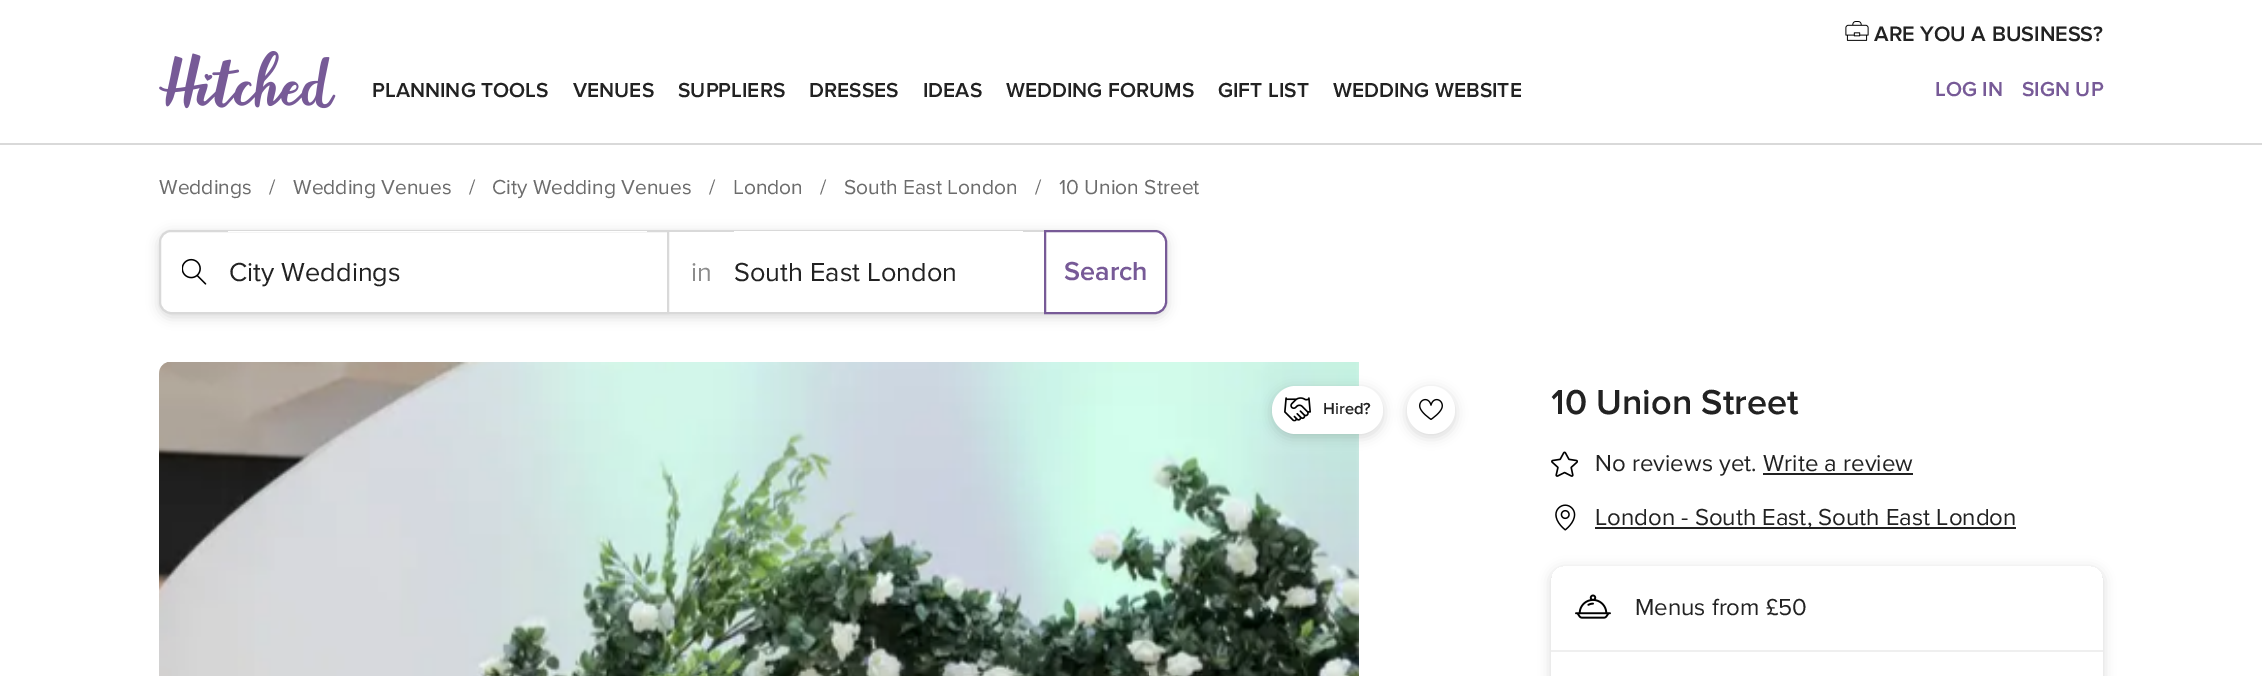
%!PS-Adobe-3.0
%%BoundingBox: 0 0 2262 676
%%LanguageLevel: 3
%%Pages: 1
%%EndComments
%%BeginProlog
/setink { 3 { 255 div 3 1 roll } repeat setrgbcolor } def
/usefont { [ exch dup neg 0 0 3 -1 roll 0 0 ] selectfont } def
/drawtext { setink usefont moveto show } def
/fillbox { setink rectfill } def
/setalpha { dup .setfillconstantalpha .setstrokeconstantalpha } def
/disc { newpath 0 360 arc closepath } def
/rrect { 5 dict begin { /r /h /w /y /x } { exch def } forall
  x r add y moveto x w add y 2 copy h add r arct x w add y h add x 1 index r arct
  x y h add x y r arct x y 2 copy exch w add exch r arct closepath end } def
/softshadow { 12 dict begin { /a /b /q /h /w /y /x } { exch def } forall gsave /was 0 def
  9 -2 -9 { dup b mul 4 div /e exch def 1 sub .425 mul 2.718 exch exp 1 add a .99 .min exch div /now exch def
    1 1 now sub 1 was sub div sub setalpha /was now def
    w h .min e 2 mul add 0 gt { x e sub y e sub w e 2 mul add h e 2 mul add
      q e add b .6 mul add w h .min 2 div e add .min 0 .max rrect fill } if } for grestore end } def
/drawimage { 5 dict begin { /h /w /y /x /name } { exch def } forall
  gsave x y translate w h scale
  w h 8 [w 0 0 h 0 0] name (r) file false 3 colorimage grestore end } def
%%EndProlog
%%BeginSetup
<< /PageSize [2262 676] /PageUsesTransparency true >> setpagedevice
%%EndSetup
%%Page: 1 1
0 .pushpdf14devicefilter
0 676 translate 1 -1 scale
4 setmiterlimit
0 0 2262 676 255 255 255 fillbox
(assets/img1.rgb) 159 51 177 58 drawimage
(PLANNING TOOLS) 372 97 /ProximaNova-SemiBold 21 34 34 34 drawtext
(VENUES) 573 97 /ProximaNova-SemiBold 21 34 34 34 drawtext
(SUPPLIERS) 678 97 /ProximaNova-SemiBold 21 34 34 34 drawtext
(DRESSES) 809 97 /ProximaNova-SemiBold 21 34 34 34 drawtext
(IDEAS) 923 97 /ProximaNova-SemiBold 21 34 34 34 drawtext
(WEDDING FORUMS) 1006 97 /ProximaNova-SemiBold 21 34 34 34 drawtext
(GIFT LIST) 1218 97 /ProximaNova-SemiBold 21 34 34 34 drawtext
(WEDDING WEBSITE) 1333 97 /ProximaNova-SemiBold 21 34 34 34 drawtext
(assets/img2.rgb) 1845 21 24 20 drawimage
(ARE YOU A BUSINESS?) 1874 41 /ProximaNova-SemiBold 21.6 34 34 34 drawtext
(LOG IN) 1935 96 /ProximaNova-SemiBold 21 119 90 151 drawtext
(SIGN UP) 2022 96 /ProximaNova-SemiBold 21 119 90 151 drawtext
0 143 2262 2 217 217 217 fillbox
(Weddings) 159 194 /ProximaNova-Regular 21 108 108 108 drawtext
(/) 269 194 /ProximaNova-Regular 21 108 108 108 drawtext
(Wedding Venues) 293 194 /ProximaNova-Regular 21 108 108 108 drawtext
(/) 469 194 /ProximaNova-Regular 21 108 108 108 drawtext
(City Wedding Venues) 492 194 /ProximaNova-Regular 21 108 108 108 drawtext
(/) 709 194 /ProximaNova-Regular 21 108 108 108 drawtext
(London) 733 194 /ProximaNova-Regular 21 108 108 108 drawtext
(/) 820 194 /ProximaNova-Regular 21 108 108 108 drawtext
(South East London) 844 194 /ProximaNova-Regular 21 108 108 108 drawtext
(/) 1035 194 /ProximaNova-Regular 21 108 108 108 drawtext
(10 Union Street) 1059 194 /ProximaNova-Regular 21 108 108 108 drawtext
gsave
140 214 moveto 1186 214 lineto 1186 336 lineto 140 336 lineto closepath 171 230 moveto 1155 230 lineto 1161.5 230 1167 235.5 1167 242 curveto 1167 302 lineto 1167 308.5 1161.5 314 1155 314 curveto 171 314 lineto 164.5 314 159 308.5 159 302 curveto 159 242 lineto 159 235.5 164.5 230 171 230 curveto closepath eoclip newpath
0 0 0 setink
159 233 1008 84 12 6 0.15 softshadow
grestore
255 255 255 setink
171 231 moveto 668 231 lineto 668 313 lineto 171 313 lineto 165 313 160 308 160 302 curveto 160 242 lineto 160 236 165 231 171 231 curveto closepath gsave fill grestore
217 217 217 setink
2 setlinewidth
stroke
(assets/img3.rgb) 182 258 25 27 drawimage
228 231 419 1 255 255 255 fillbox
(City Weddings) 229 281 /ProximaNova-Regular 27 34 34 34 drawtext
669 230 375 2 217 217 217 fillbox
669 312 375 2 217 217 217 fillbox
(in) 691 281 /ProximaNova-Regular 27 140 140 140 drawtext
734 231 289 1 255 255 255 fillbox
(South East London) 734 281 /ProximaNova-Regular 27 34 34 34 drawtext
119 90 151 setink
1045 231 moveto 1155 231 lineto 1161 231 1166 236 1166 242 curveto 1166 302 lineto 1166 308 1161 313 1155 313 curveto 1045 313 lineto closepath stroke
(Search) 1064 280 /ProximaNova-SemiBold 27 119 90 151 drawtext
(assets/img4.rgb) 159 362 1200 314 drawimage
0 0 0 setink
1272 389 111 48 24 6 0.15 softshadow
255 255 255 setink
1272 386 111 48 24 rrect fill
(assets/img5.rgb) 1284 397 27 25 drawimage
(Hired?) 1323 414 /ProximaNova-SemiBold 16.5 34 34 34 drawtext
0 0 0 setink
1407 389 48 48 24 6 0.15 softshadow
255 255 255 setink
1431 410 24 disc fill
(assets/img6.rgb) 1419 398 24 22 drawimage
(10 Union Street) 1551 414 /ProximaNova-SemiBold 36 34 34 34 drawtext
(assets/img7.rgb) 1551 451 27 26 drawimage
(No reviews yet. Write a review) 1595 471 /ProximaNova-Regular 24 34 34 34 drawtext
1763 473 150 2 34 34 34 fillbox
(assets/img8.rgb) 1555 504 21 27 drawimage
1595 527 421 2 34 34 34 fillbox
(London - South East, South East London) 1595 525 /ProximaNova-Regular 24 34 34 34 drawtext
gsave
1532 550 moveto 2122 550 lineto 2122 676 lineto 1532 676 lineto closepath 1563 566 moveto 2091 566 lineto 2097.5 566 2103 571.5 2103 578 curveto 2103 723 lineto 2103 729.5 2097.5 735 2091 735 curveto 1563 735 lineto 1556.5 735 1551 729.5 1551 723 curveto 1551 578 lineto 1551 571.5 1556.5 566 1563 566 curveto closepath eoclip newpath
0 0 0 setink
1551 569 552 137 12 6 0.15 softshadow
grestore
1551 650 552 2 239 239 239 fillbox
(assets/img9.rgb) 1575 594 36 25 drawimage
(Menus from £50) 1635 615 /ProximaNova-Regular 24 34 34 34 drawtext
.poppdf14devicefilter showpage
%%EOF
